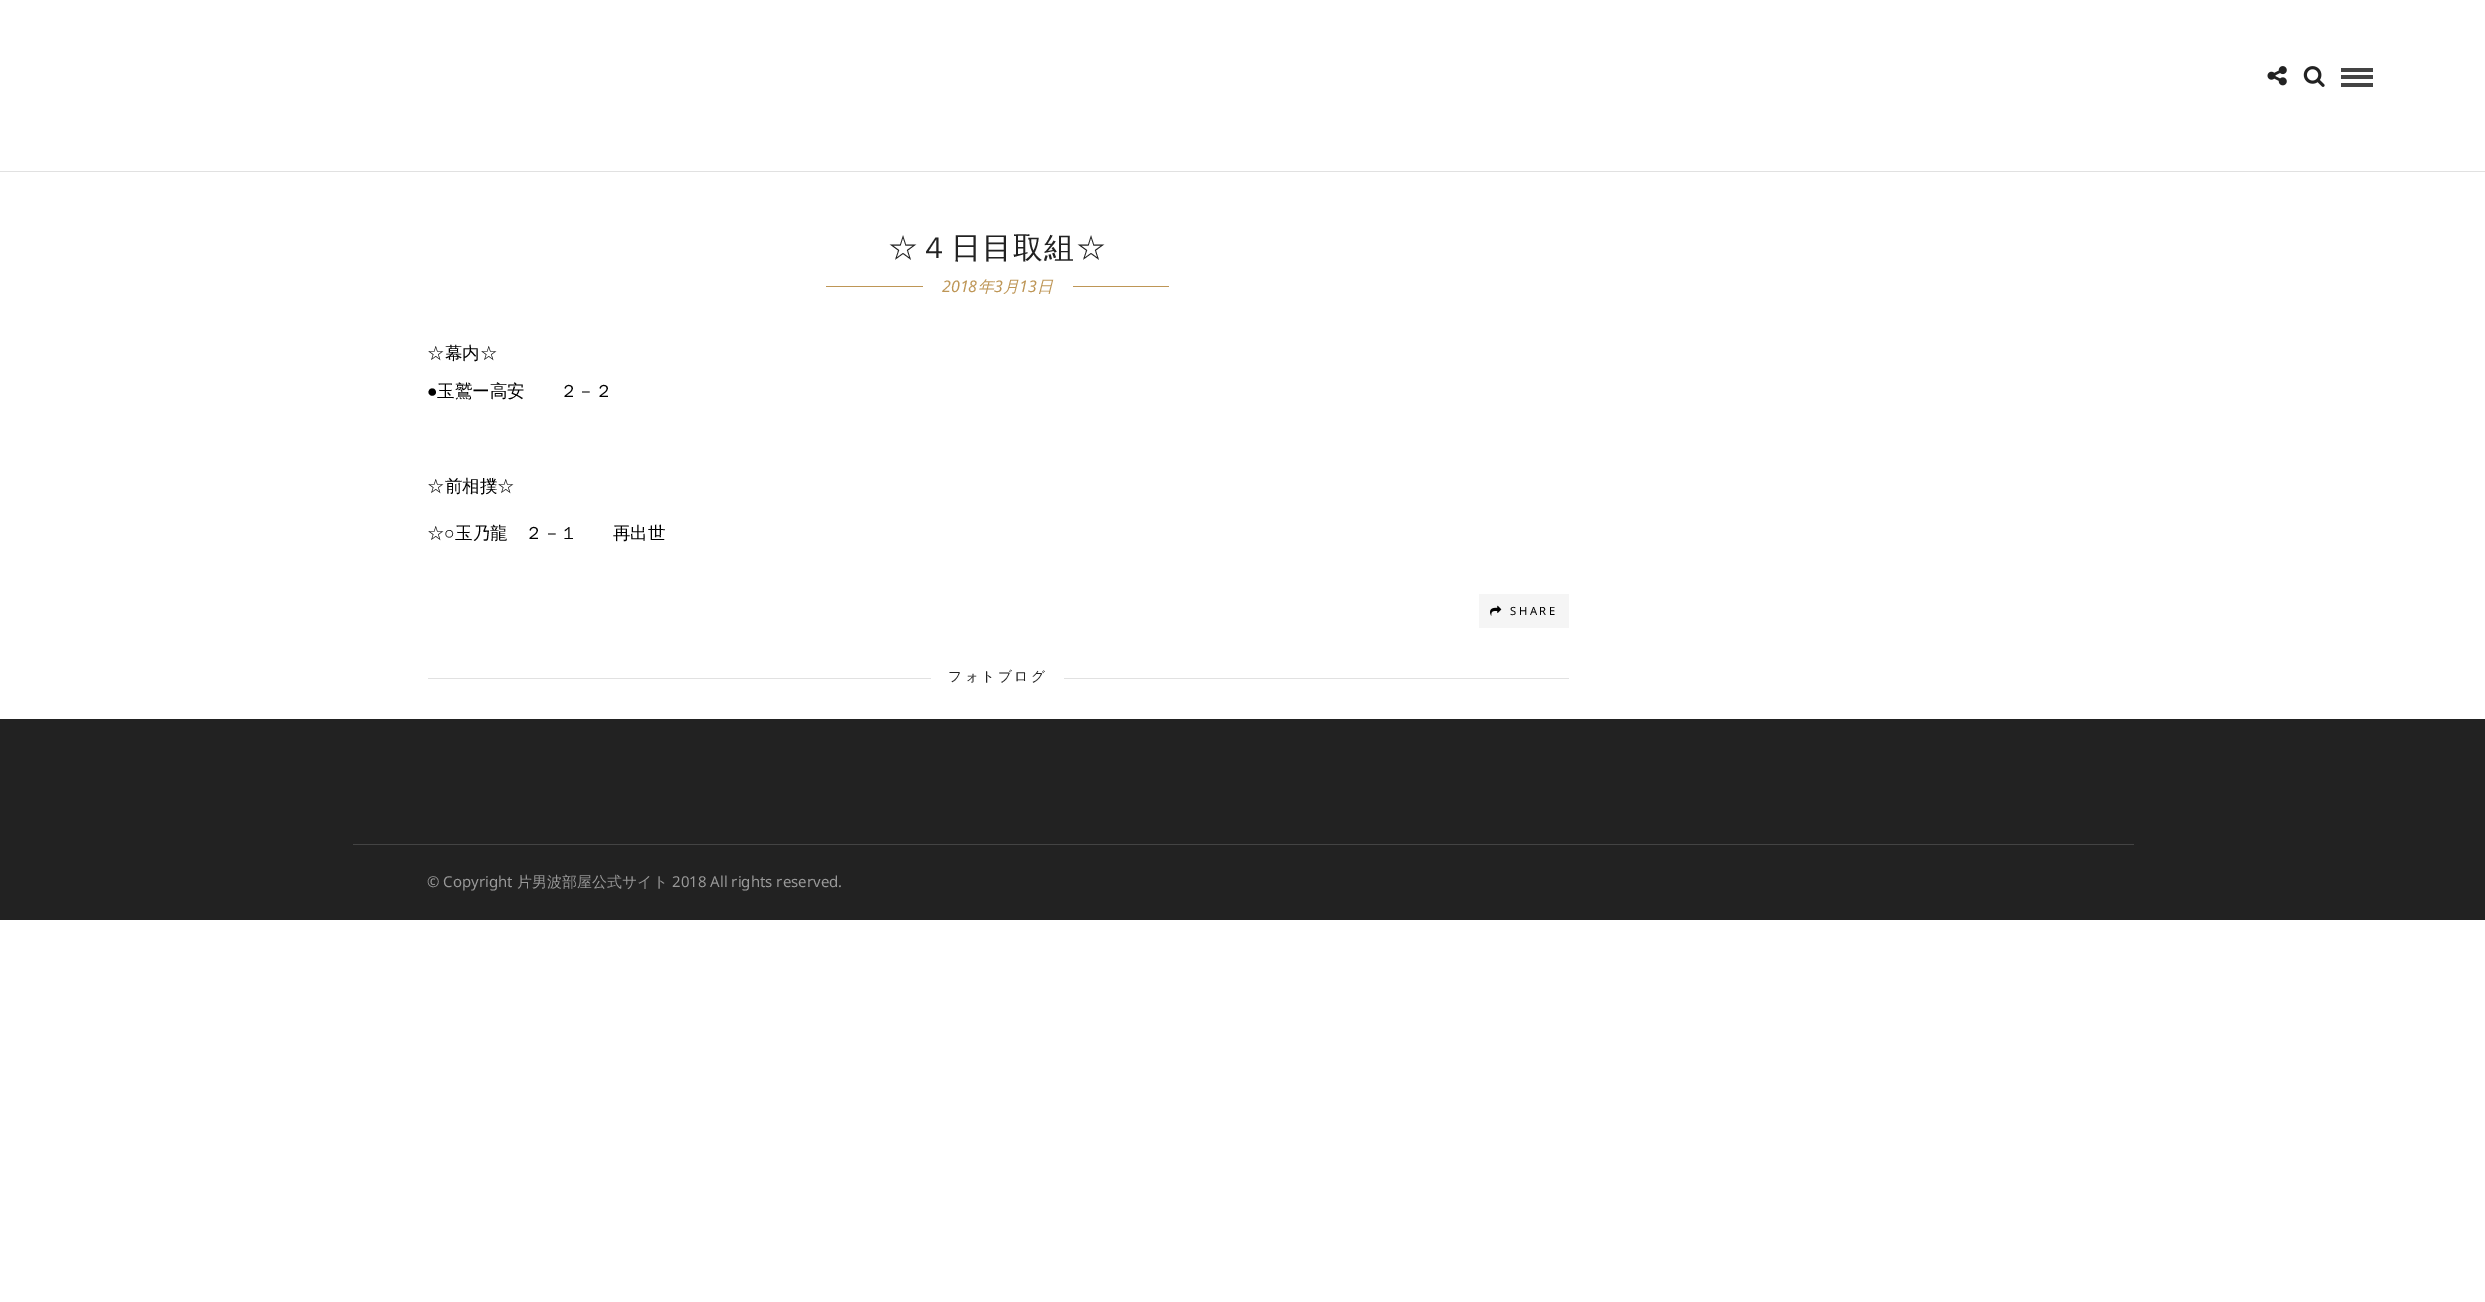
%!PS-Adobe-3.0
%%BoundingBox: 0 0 2485 1302
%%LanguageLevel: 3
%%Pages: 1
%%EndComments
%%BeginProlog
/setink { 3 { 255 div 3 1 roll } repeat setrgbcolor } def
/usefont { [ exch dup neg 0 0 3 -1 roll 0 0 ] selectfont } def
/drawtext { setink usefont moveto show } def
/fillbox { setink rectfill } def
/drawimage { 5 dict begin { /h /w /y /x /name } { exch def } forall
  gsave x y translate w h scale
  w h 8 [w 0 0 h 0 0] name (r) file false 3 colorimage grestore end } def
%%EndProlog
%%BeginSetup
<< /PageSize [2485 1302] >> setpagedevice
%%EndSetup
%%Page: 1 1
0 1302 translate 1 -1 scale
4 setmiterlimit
0 0 2485 1302 255 255 255 fillbox
0 171 2485 1 225 225 225 fillbox
(assets/img1.rgb) 2267 66 20 20 drawimage
(assets/img2.rgb) 2303 66 22 21 drawimage
2341 68 32 4 68 68 68 fillbox
2341 75 32 4 68 68 68 fillbox
2341 83 32 4 68 68 68 fillbox
/WenQuanYiZenHei-Medium 30 usefont
34 34 34 setink
888 258 moveto 1.25 0 (☆４日目取組☆) ashow
826 286 343 1 190 150 86 fillbox
923 286 150 1 255 255 255 fillbox
(2018) 942 292 /NotoSans-Italic 16 190 150 86 drawtext
(年) 978 292 /WenQuanYiZenHei-MediumItalic 16 190 150 86 drawtext
(3) 994 292 /NotoSans-Italic 16 190 150 86 drawtext
(月) 1003 292 /WenQuanYiZenHei-MediumItalic 16 190 150 86 drawtext
(13) 1019 292 /NotoSans-Italic 16 190 150 86 drawtext
(日) 1037 292 /WenQuanYiZenHei-MediumItalic 16 190 150 86 drawtext
(☆幕内☆) 427 359 /WenQuanYiZenHei-Medium 17.5 0 0 0 drawtext
(●) 427 397 /LiberationSans-Regular 17.5 0 0 0 drawtext
(玉鷲ー高安　　２－２) 437 397 /WenQuanYiZenHei-Medium 17.5 0 0 0 drawtext
(☆前相撲☆) 427 492 /WenQuanYiZenHei-Medium 17.5 0 0 0 drawtext
(☆) 427 539 /WenQuanYiZenHei-Medium 17.5 0 0 0 drawtext
(○) 444 539 /LiberationSans-Regular 17.5 0 0 0 drawtext
(玉乃龍　２－１　　再出世) 455 539 /WenQuanYiZenHei-Medium 17.5 0 0 0 drawtext
1479 594 90 34 245 245 245 fillbox
(assets/img3.rgb) 1490 605 12 11 drawimage
/NotoSans-Regular 11.25 usefont
0 0 0 setink
1510 615 moveto 2.5 0 (SHARE) ashow
428 678 1141 1 225 225 225 fillbox
931 678 133 1 255 255 255 fillbox
/WenQuanYiZenHei-Medium 13.75 usefont
34 34 34 setink
948 681 moveto 2.5 0 (フォトブログ) ashow
0 719 2485 201 34 34 34 fillbox
353 844 1781 1 68 68 68 fillbox
(© Copyright) 427 887 /NotoSans-Regular 15 153 153 153 drawtext
(片男波部屋公式サイト) 517 887 /WenQuanYiZenHei-Medium 15 153 153 153 drawtext
(2018 All rights reserved.) 672 887 /NotoSans-Regular 15 153 153 153 drawtext
showpage
%%EOF
